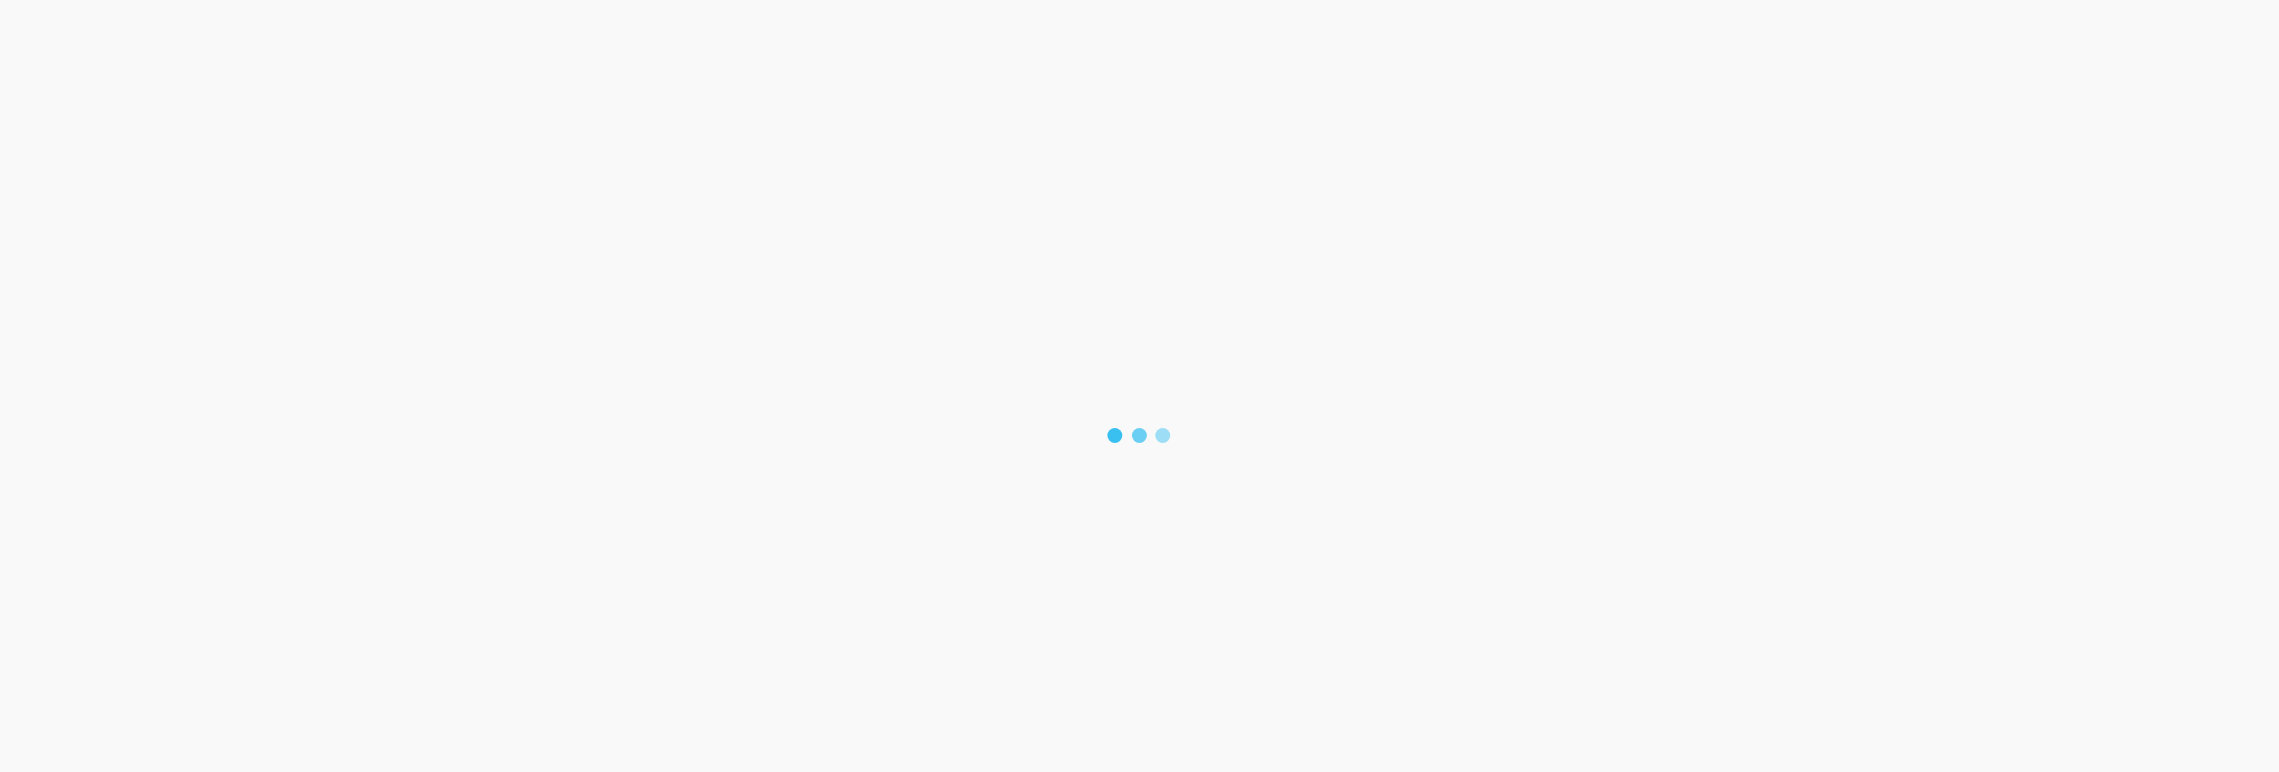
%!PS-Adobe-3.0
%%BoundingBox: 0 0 2279 772
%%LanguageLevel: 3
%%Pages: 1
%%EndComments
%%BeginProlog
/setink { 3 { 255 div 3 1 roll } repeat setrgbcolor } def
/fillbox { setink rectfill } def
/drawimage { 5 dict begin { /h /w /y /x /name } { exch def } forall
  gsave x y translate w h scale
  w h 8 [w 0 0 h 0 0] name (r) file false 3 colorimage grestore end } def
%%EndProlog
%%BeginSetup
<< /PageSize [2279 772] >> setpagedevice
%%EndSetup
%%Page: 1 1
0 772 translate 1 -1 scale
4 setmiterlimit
0 0 2279 772 249 249 249 fillbox
(assets/img1.rgb) 1107 428 64 15 drawimage
showpage
%%EOF
